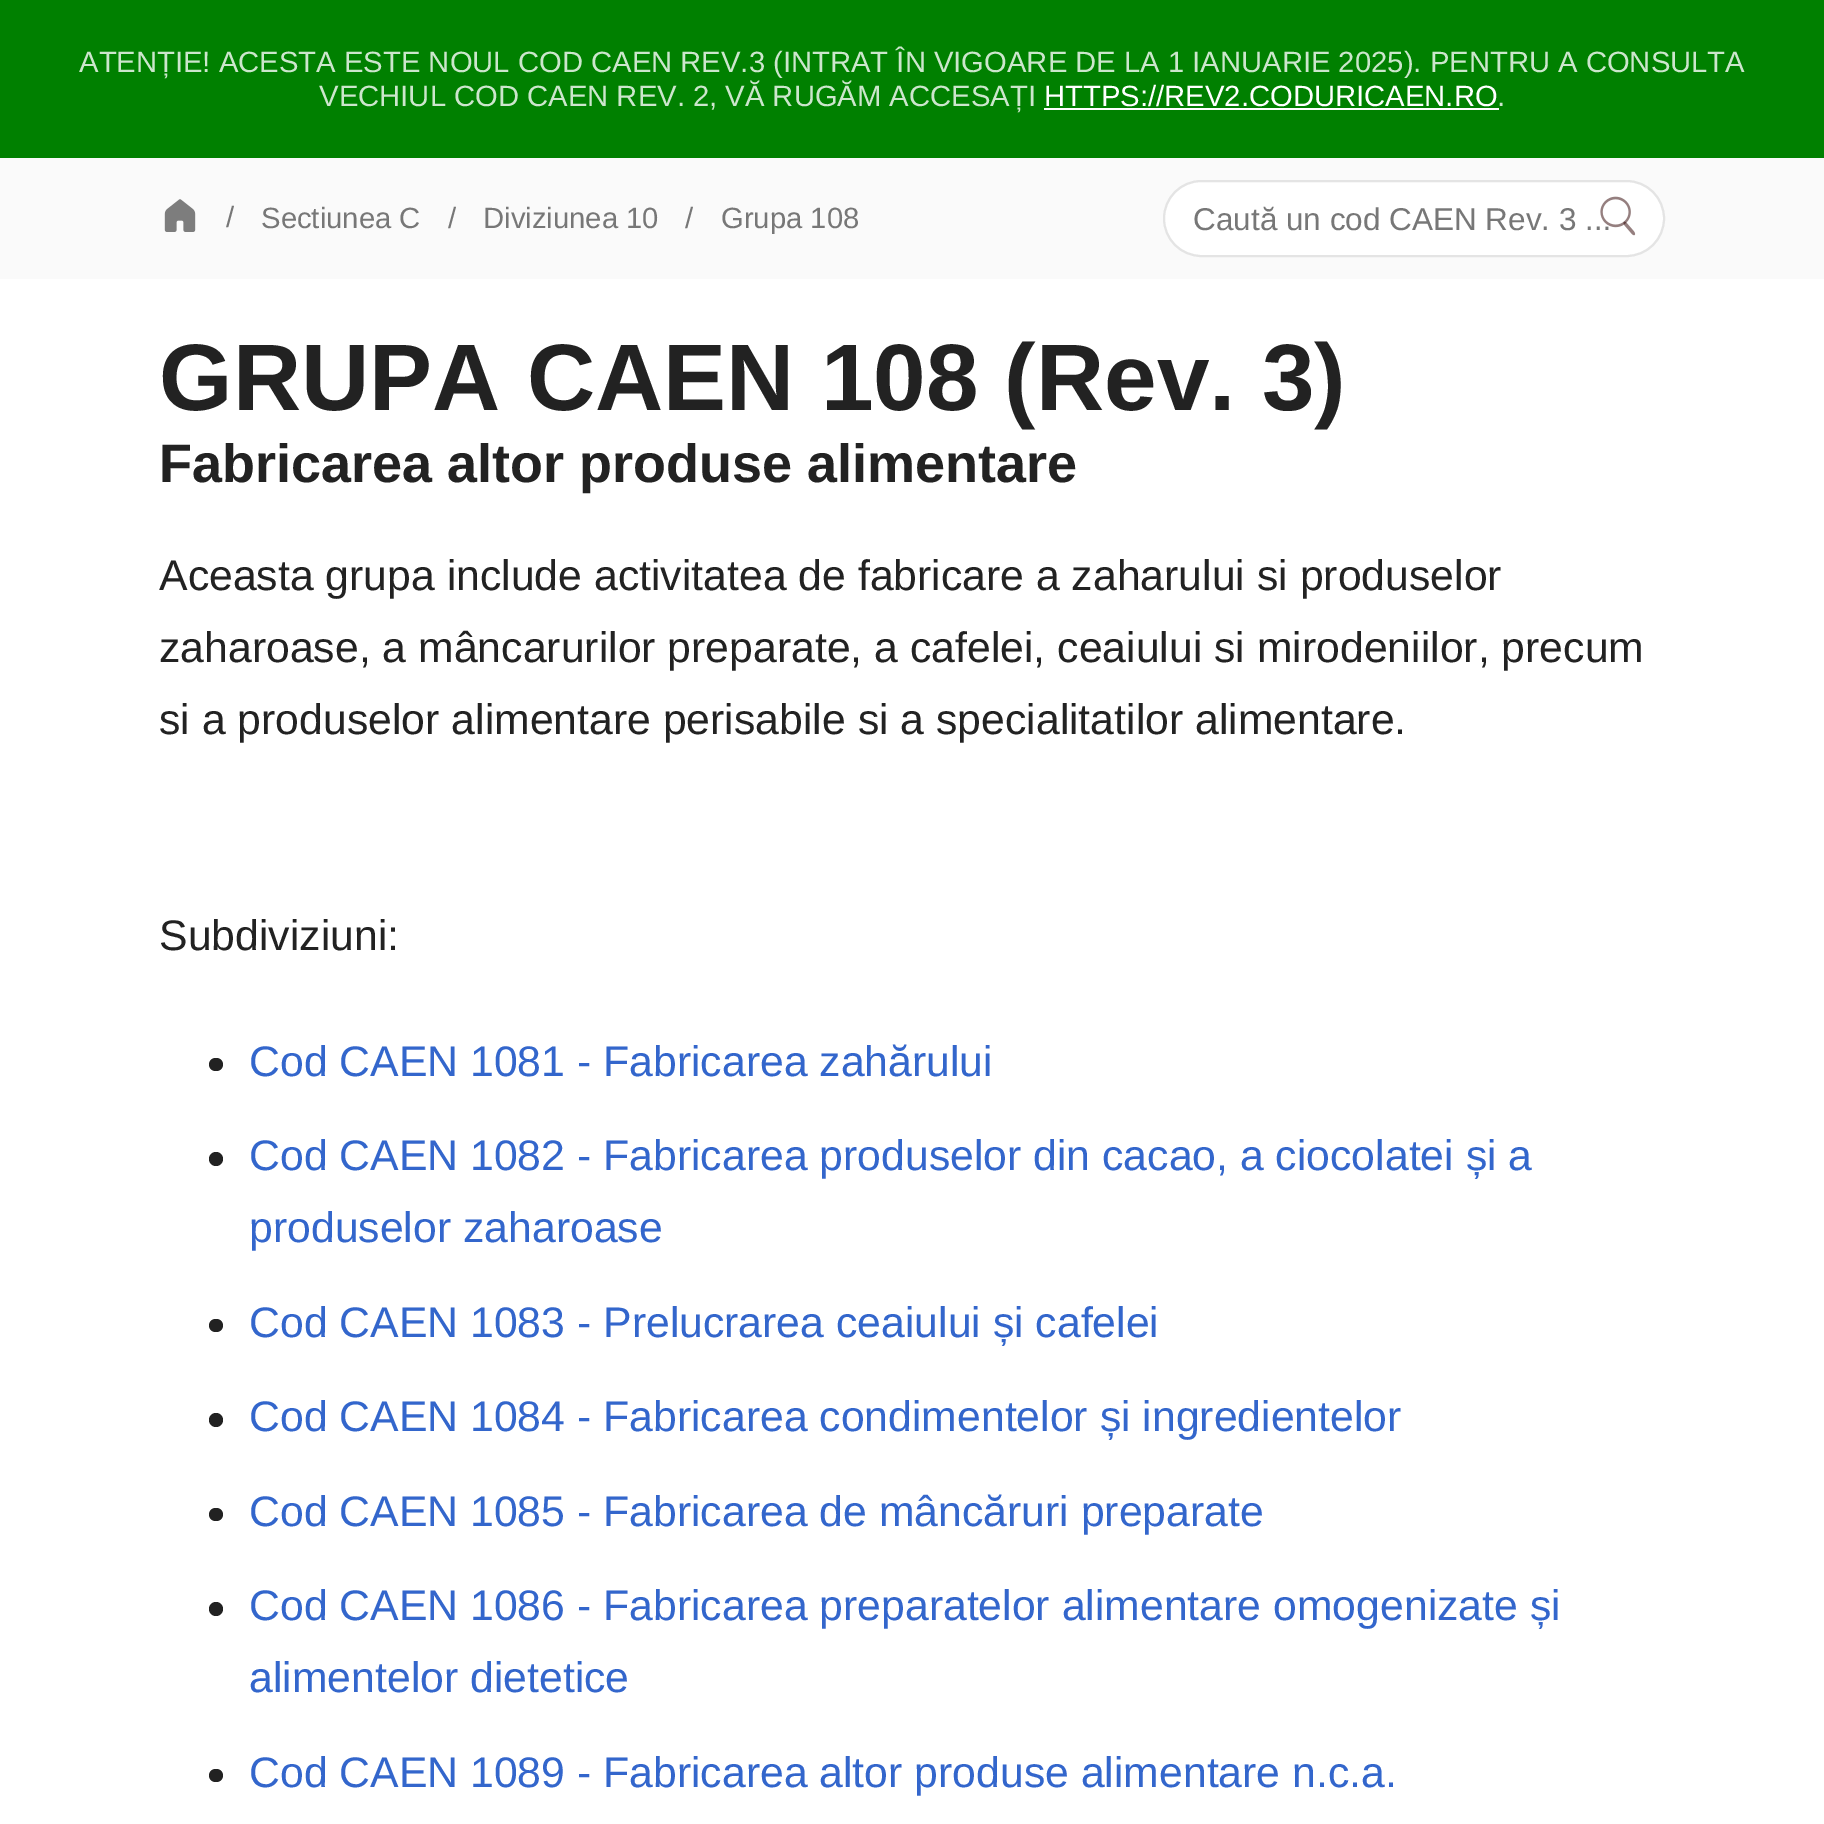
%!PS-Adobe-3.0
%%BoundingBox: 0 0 1824 1824
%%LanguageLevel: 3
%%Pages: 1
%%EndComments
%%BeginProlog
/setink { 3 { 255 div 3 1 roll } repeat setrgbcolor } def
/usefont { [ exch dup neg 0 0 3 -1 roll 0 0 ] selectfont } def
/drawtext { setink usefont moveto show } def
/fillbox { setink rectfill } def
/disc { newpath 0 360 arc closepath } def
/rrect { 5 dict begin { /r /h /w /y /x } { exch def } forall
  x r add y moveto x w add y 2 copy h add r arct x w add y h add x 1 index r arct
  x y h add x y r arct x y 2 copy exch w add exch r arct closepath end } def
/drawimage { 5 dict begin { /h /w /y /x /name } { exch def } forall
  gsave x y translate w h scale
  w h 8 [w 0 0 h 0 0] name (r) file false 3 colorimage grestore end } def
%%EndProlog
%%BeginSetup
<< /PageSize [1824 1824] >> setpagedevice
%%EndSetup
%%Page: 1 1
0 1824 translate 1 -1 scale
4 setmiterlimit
0 0 1824 1824 255 255 255 fillbox
0 0 1824 158 0 128 0 fillbox
(ATENȚIE! ACESTA ESTE NOUL COD CAEN REV.3 \(INTRAT ÎN VIGOARE DE LA 1 IANUARIE 2025\). PENTRU A CONSULTA) 79 72 /LiberationSans-Regular 29.25 204 230 204 drawtext
(VECHIUL COD CAEN REV. 2, VĂ RUGĂM ACCESAȚI) 319 106 /LiberationSans-Regular 29.25 204 230 204 drawtext
(HTTPS://REV2.CODURICAEN.RO) 1044 106 /LiberationSans-Regular 29.25 255 255 255 drawtext
1044 108 455 2 255 255 255 fillbox
(.) 1497 106 /LiberationSans-Regular 29.25 204 230 204 drawtext
0 158 1824 121 250 250 250 fillbox
(assets/img1.rgb) 164 199 32 33 drawimage
(/) 226 227 /LiberationSans-Regular 29.25 119 119 119 drawtext
(Sectiunea C) 261 228 /LiberationSans-Regular 29.25 119 119 119 drawtext
(/) 448 228 /LiberationSans-Regular 29.25 119 119 119 drawtext
(Diviziunea 10) 483 228 /LiberationSans-Regular 29.25 119 119 119 drawtext
(/) 685 228 /LiberationSans-Regular 29.25 119 119 119 drawtext
(Grupa 108) 721 228 /LiberationSans-Regular 29.25 119 119 119 drawtext
255 255 255 setink
1164 181 500 75 37.5 rrect gsave fill grestore
228 228 228 setink
2 setlinewidth
stroke
(Caută un cod CAEN Rev. 3 ...) 1193 230 /LiberationSans-Regular 31.5 119 119 119 drawtext
(assets/img2.rgb) 1600 196 36 40 drawimage
(GRUPA CAEN 108 \(Rev. 3\)) 159 410 /LiberationSans-Bold 94.5 34 34 34 drawtext
(Fabricarea altor produse alimentare) 159 482 /LiberationSans-Bold 54 34 34 34 drawtext
(Aceasta grupa include activitatea de fabricare a zaharului si produselor) 159 590 /LiberationSans-Regular 42.75 34 34 34 drawtext
(zaharoase, a mâncarurilor preparate, a cafelei, ceaiului si mirodeniilor, precum) 159 662 /LiberationSans-Regular 42.75 34 34 34 drawtext
(si a produselor alimentare perisabile si a specialitatilor alimentare.) 159 734 /LiberationSans-Regular 42.75 34 34 34 drawtext
(Subdiviziuni:) 159 950 /LiberationSans-Regular 42.75 34 34 34 drawtext
209 1058 14 13 6.5 rrect fill
(Cod CAEN 1081 - Fabricarea zahărului) 249 1076 /LiberationSans-Regular 42.75 51 102 204 drawtext
34 34 34 setink
216 1159 7 disc fill
(Cod CAEN 1082 - Fabricarea produselor din cacao, a ciocolatei și a) 249 1170 /LiberationSans-Regular 42.75 51 102 204 drawtext
(produselor zaharoase) 249 1242 /LiberationSans-Regular 42.75 51 102 204 drawtext
34 34 34 setink
209 1319 14 13 6.5 rrect fill
(Cod CAEN 1083 - Prelucrarea ceaiului și cafelei) 249 1337 /LiberationSans-Regular 42.75 51 102 204 drawtext
34 34 34 setink
216 1420 7 disc fill
(Cod CAEN 1084 - Fabricarea condimentelor și ingredientelor) 249 1431 /LiberationSans-Regular 42.75 51 102 204 drawtext
34 34 34 setink
209 1508 14 13 6.5 rrect fill
(Cod CAEN 1085 - Fabricarea de mâncăruri preparate) 249 1526 /LiberationSans-Regular 42.75 51 102 204 drawtext
34 34 34 setink
216 1609 7 disc fill
(Cod CAEN 1086 - Fabricarea preparatelor alimentare omogenizate și) 249 1620 /LiberationSans-Regular 42.75 51 102 204 drawtext
(alimentelor dietetice) 249 1692 /LiberationSans-Regular 42.75 51 102 204 drawtext
34 34 34 setink
209 1769 14 13 6.5 rrect fill
(Cod CAEN 1089 - Fabricarea altor produse alimentare n.c.a.) 249 1787 /LiberationSans-Regular 42.75 51 102 204 drawtext
showpage
%%EOF
